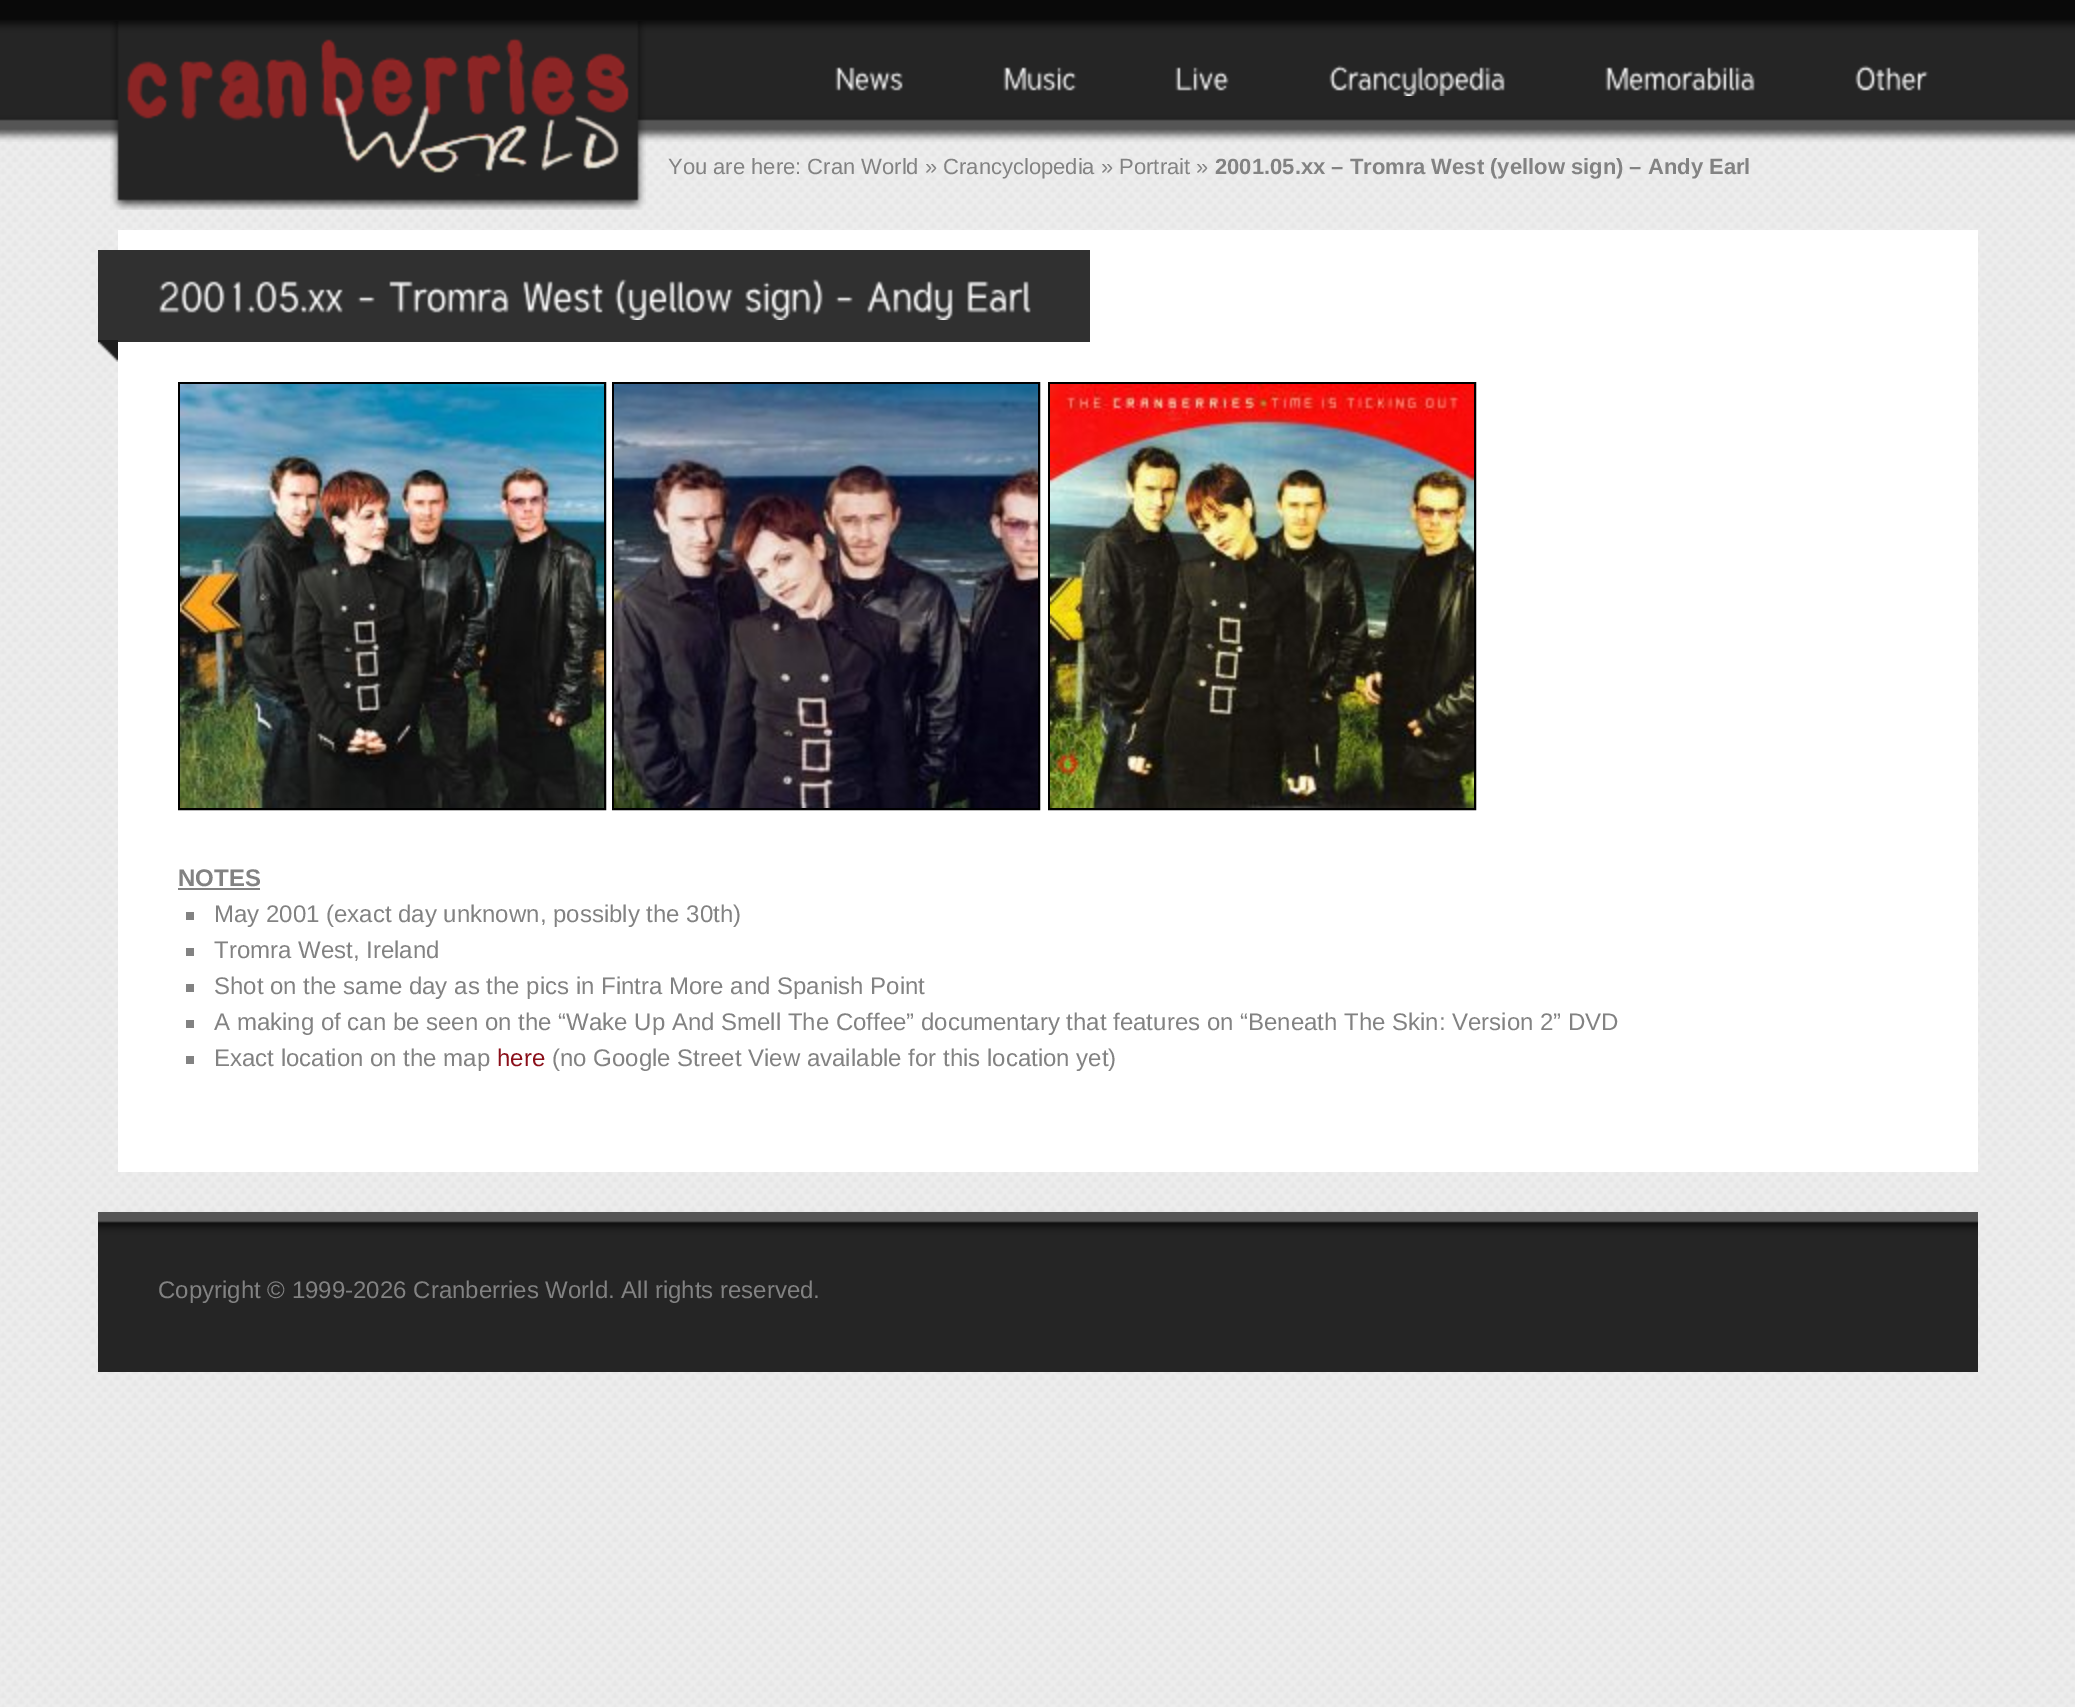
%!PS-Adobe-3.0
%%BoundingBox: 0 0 2075 1707
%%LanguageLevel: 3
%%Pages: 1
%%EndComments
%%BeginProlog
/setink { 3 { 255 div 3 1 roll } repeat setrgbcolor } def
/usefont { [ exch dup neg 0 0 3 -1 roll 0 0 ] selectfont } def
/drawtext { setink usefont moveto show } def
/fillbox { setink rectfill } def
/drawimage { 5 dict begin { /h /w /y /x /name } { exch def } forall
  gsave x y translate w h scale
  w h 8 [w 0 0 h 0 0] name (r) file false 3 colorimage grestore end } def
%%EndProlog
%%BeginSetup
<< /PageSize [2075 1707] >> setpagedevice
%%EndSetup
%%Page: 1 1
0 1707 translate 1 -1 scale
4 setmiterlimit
0 0 2075 1707 255 255 255 fillbox
(assets/img1.rgb) 0 129 2075 1578 drawimage
(assets/img2.rgb) 0 0 2075 142 drawimage
(assets/img3.rgb) 110 21 536 189 drawimage
(assets/img4.rgb) 835 67 68 24 drawimage
(assets/img5.rgb) 1003 67 74 24 drawimage
(assets/img6.rgb) 1175 67 54 24 drawimage
(assets/img7.rgb) 1329 65 176 31 drawimage
(assets/img8.rgb) 1605 67 150 24 drawimage
(assets/img9.rgb) 1855 65 74 26 drawimage
(You are here: Cran World » Crancyclopedia » Portrait ») 668 174 /LiberationSans-Regular 22 130 130 130 drawtext
(2001.05.xx – Tromra West \(yellow sign\) – Andy Earl) 1215 174 /LiberationSans-Bold 22 130 130 130 drawtext
118 230 1860 942 255 255 255 fillbox
98 250 992 92 48 48 48 fillbox
(assets/img10.rgb) 159 281 184 32 drawimage
(assets/img11.rgb) 357 296 18 7 drawimage
(assets/img12.rgb) 389 281 120 32 drawimage
(assets/img13.rgb) 523 281 81 32 drawimage
(assets/img14.rgb) 615 279 118 41 drawimage
(assets/img15.rgb) 745 279 78 41 drawimage
(assets/img11.rgb) 835 296 18 7 drawimage
(assets/img16.rgb) 867 281 86 39 drawimage
(assets/img17.rgb) 967 281 64 32 drawimage
(assets/img18.rgb) 98 340 20 22 drawimage
0 0 0 setink
2 setlinewidth
179 383 426 426 rectstroke
613 383 426 426 rectstroke
1049 383 426 426 rectstroke
(assets/img19.rgb) 180 384 424 424 drawimage
(assets/img20.rgb) 614 384 424 424 drawimage
(assets/img21.rgb) 1050 384 424 424 drawimage
(NOTES) 178 886 /LiberationSans-Bold 24 130 130 130 drawtext
178 888 82 2 130 130 130 fillbox
186 912 8 8 130 130 130 fillbox
(May 2001 \(exact day unknown, possibly the 30th\)) 214 922 /LiberationSans-Regular 24 130 130 130 drawtext
186 948 8 8 130 130 130 fillbox
(Tromra West, Ireland) 214 958 /LiberationSans-Regular 24 130 130 130 drawtext
186 984 8 8 130 130 130 fillbox
(Shot on the same day as the pics in Fintra More and Spanish Point) 214 994 /LiberationSans-Regular 24 130 130 130 drawtext
186 1020 8 8 130 130 130 fillbox
(A making of can be seen on the “Wake Up And Smell The Coffee” documentary that features on “Beneath The Skin: Version 2” DVD) 214 1030 /LiberationSans-Regular 24 130 130 130 drawtext
186 1056 8 8 130 130 130 fillbox
(Exact location on the map) 214 1066 /LiberationSans-Regular 24 130 130 130 drawtext
(here) 497 1066 /LiberationSans-Regular 24 139 15 26 drawtext
(\(no Google Street View available for this location yet\)) 552 1066 /LiberationSans-Regular 24 130 130 130 drawtext
(assets/img22.rgb) 98 1212 1880 160 drawimage
(Copyright © 1999-2026 Cranberries World. All rights reserved.) 158 1298 /LiberationSans-Regular 24 130 130 130 drawtext
showpage
%%EOF
